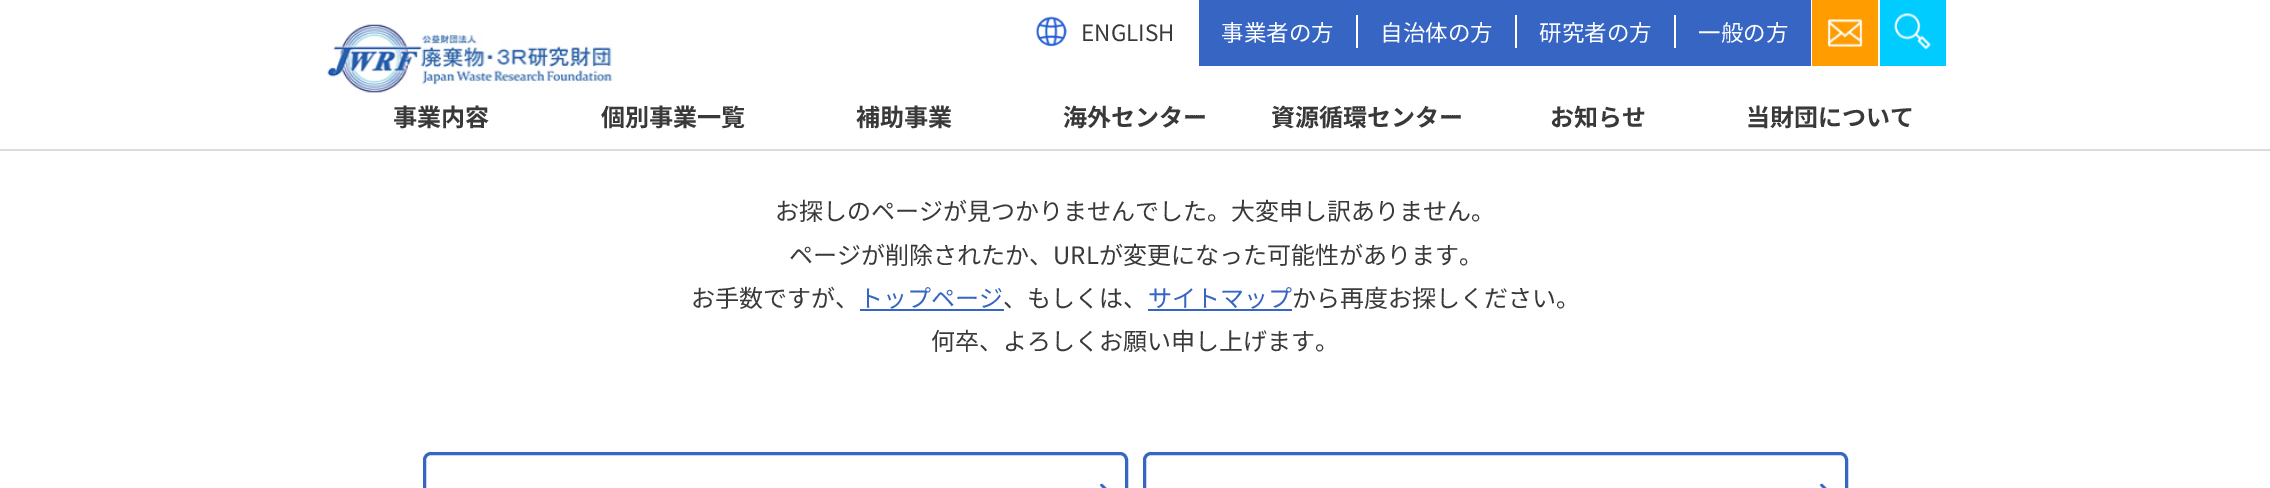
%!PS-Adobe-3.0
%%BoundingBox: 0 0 2270 488
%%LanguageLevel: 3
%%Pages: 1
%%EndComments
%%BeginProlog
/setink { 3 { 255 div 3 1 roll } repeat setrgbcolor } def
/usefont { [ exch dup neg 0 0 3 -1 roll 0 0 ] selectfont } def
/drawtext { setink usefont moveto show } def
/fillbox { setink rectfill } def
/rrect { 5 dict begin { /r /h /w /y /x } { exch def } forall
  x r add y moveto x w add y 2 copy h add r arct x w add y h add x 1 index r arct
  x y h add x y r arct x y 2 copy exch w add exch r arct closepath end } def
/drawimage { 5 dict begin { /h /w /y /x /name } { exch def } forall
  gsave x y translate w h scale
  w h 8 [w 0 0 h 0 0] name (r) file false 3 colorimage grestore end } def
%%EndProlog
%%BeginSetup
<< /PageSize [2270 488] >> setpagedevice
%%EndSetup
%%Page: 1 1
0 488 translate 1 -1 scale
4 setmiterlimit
0 0 2270 488 255 255 255 fillbox
0 149 2270 2 220 220 220 fillbox
1812 0 66 66 255 156 0 fillbox
(assets/img1.rgb) 1827 19 36 28 drawimage
1880 0 66 66 0 204 255 fillbox
(assets/img2.rgb) 1894 13 37 37 drawimage
(assets/img3.rgb) 1036 16 31 31 drawimage
(ENGLISH) 1081 41 /NotoSansJP-Regular 22.5 57 57 57 drawtext
1199 0 612 66 55 101 195 fillbox
1356 15 2 33 255 255 255 fillbox
(事業者の方) 1221 41 /NotoSansJP-Regular 22.5 255 255 255 drawtext
1515 15 2 33 255 255 255 fillbox
(自治体の方) 1380 41 /NotoSansJP-Regular 22.5 255 255 255 drawtext
1674 15 2 33 255 255 255 fillbox
(研究者の方) 1539 41 /NotoSansJP-Regular 22.5 255 255 255 drawtext
(一般の方) 1698 41 /NotoSansJP-Regular 22.5 255 255 255 drawtext
(事業内容) 393 126 /NotoSansJP-Bold 24 57 57 57 drawtext
(個別事業一覧) 601 126 /NotoSansJP-Bold 24 57 57 57 drawtext
(補助事業) 856 126 /NotoSansJP-Bold 24 57 57 57 drawtext
(海外センター) 1063 126 /NotoSansJP-Bold 24 57 57 57 drawtext
(資源循環センター) 1271 126 /NotoSansJP-Bold 24 57 57 57 drawtext
(お知らせ) 1550 126 /NotoSansJP-Bold 24 57 57 57 drawtext
(当財団について) 1746 126 /NotoSansJP-Bold 24 57 57 57 drawtext
(assets/img4.rgb) 327 24 286 69 drawimage
(お探しのページが見つかりませんでした。大変申し訳ありません。) 775 220 /NotoSansJP-Regular 24 57 57 57 drawtext
(ページが削除されたか、URLが変更になった可能性があります。) 789 264 /NotoSansJP-Regular 24 57 57 57 drawtext
(お手数ですが、) 691 307 /NotoSansJP-Regular 24 57 57 57 drawtext
(トップページ) 859 307 /NotoSansJP-Regular 24 55 101 195 drawtext
860 309 144 2 55 101 195 fillbox
(、もしくは、) 1003 307 /NotoSansJP-Regular 24 57 57 57 drawtext
(サイトマップ) 1148 307 /NotoSansJP-Regular 24 55 101 195 drawtext
1148 309 144 2 55 101 195 fillbox
(から再度お探しください。) 1292 307 /NotoSansJP-Regular 24 57 57 57 drawtext
(何卒、よろしくお願い申し上げます。) 931 350 /NotoSansJP-Regular 24 57 57 57 drawtext
55 101 195 setink
3 setlinewidth
424.5 453.5 702 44 6.5 rrect stroke
(assets/img5.rgb) 1099 483 8 5 drawimage
1144.5 453.5 702 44 6.5 rrect stroke
(assets/img6.rgb) 1819 483 8 5 drawimage
showpage
%%EOF
